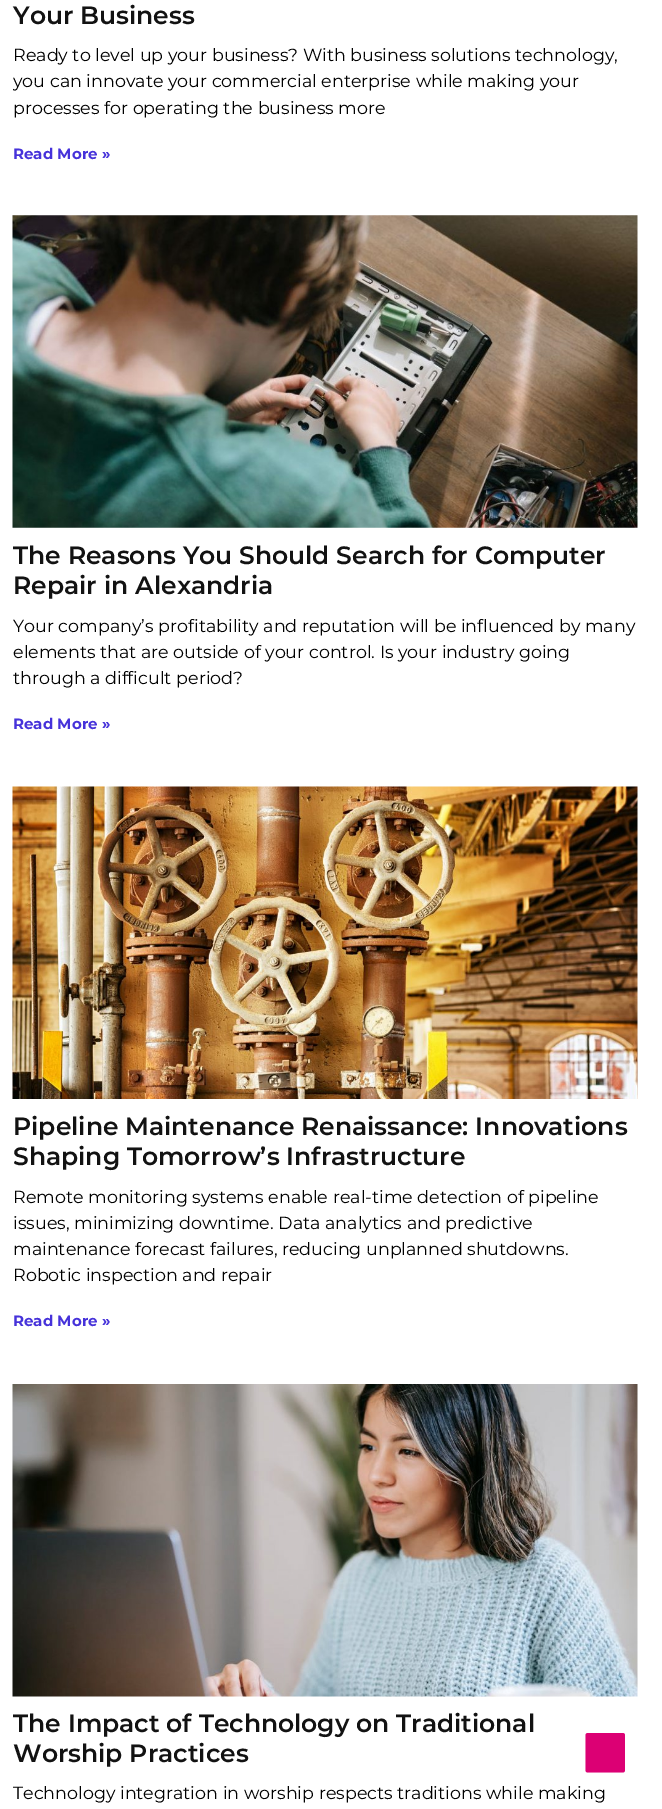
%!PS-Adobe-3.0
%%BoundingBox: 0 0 662 1809
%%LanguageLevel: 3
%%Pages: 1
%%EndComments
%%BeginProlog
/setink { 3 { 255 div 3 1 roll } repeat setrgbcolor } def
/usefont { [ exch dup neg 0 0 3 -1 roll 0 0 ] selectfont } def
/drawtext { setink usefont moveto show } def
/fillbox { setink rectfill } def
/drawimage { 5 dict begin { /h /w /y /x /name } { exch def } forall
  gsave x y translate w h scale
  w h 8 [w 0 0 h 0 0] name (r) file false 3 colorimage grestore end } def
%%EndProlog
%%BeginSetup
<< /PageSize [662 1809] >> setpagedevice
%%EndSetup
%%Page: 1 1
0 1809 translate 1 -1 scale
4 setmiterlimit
0 0 662 1809 255 255 255 fillbox
(Your Business) 13 24 /Montserrat-SemiBold 25 18 18 18 drawtext
(Ready to level up your business? With business solutions technology,) 13 61 /Montserrat-Regular 17.5 0 0 0 drawtext
gsave
13 0 625 171 rectclip
(you can innovate your commercial enterprise while making your) 13 87 /Montserrat-Regular 17.5 0 0 0 drawtext
grestore
(processes for operating the business more) 13 114 /Montserrat-Regular 17.5 0 0 0 drawtext
(Read More ») 13 159 /Montserrat-Bold 15 70 50 218 drawtext
(assets/img1.rgb) 12 215 626 313 drawimage
gsave
13 215 625 528 rectclip
(The Reasons You Should Search for Computer) 13 564 /Montserrat-SemiBold 25 18 18 18 drawtext
grestore
(Repair in Alexandria) 13 594 /Montserrat-SemiBold 25 18 18 18 drawtext
(Your company’s profitability and reputation will be influenced by many) 13 632 /Montserrat-Regular 17.5 0 0 0 drawtext
(elements that are outside of your control. Is your industry going) 13 658 /Montserrat-Regular 17.5 0 0 0 drawtext
(through a difficult period?) 13 684 /Montserrat-Regular 17.5 0 0 0 drawtext
(Read More ») 13 729 /Montserrat-Bold 15 70 50 218 drawtext
(assets/img2.rgb) 12 786 626 313 drawimage
(Pipeline Maintenance Renaissance: Innovations) 13 1135 /Montserrat-SemiBold 25 18 18 18 drawtext
(Shaping Tomorrow’s Infrastructure) 13 1165 /Montserrat-SemiBold 25 18 18 18 drawtext
(Remote monitoring systems enable real-time detection of pipeline) 13 1203 /Montserrat-Regular 17.5 0 0 0 drawtext
(issues, minimizing downtime. Data analytics and predictive) 13 1229 /Montserrat-Regular 17.5 0 0 0 drawtext
(maintenance forecast failures, reducing unplanned shutdowns.) 13 1255 /Montserrat-Regular 17.5 0 0 0 drawtext
(Robotic inspection and repair) 13 1281 /Montserrat-Regular 17.5 0 0 0 drawtext
(Read More ») 13 1326 /Montserrat-Bold 15 70 50 218 drawtext
(assets/img3.rgb) 12 1384 626 313 drawimage
gsave
13 1384 625 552 rectclip
(The Impact of Technology on Traditional) 13 1732 /Montserrat-SemiBold 25 18 18 18 drawtext
grestore
(Worship Practices) 13 1762 /Montserrat-SemiBold 25 18 18 18 drawtext
(Technology integration in worship respects traditions while making) 13 1799 /Montserrat-Regular 17.5 0 0 0 drawtext
220 0 116 setink
622.5 1772.5 moveto 588 1772.5 lineto 586.5 1772.5 585.5 1771.5 585.5 1770 curveto 585.5 1735.5 lineto 585.5 1734 586.5 1733 588 1733 curveto 622.5 1733 lineto 624 1733 625 1734 625 1735.5 curveto 625 1770 lineto 625 1771.5 624 1772.5 622.5 1772.5 curveto closepath fill
showpage
%%EOF
